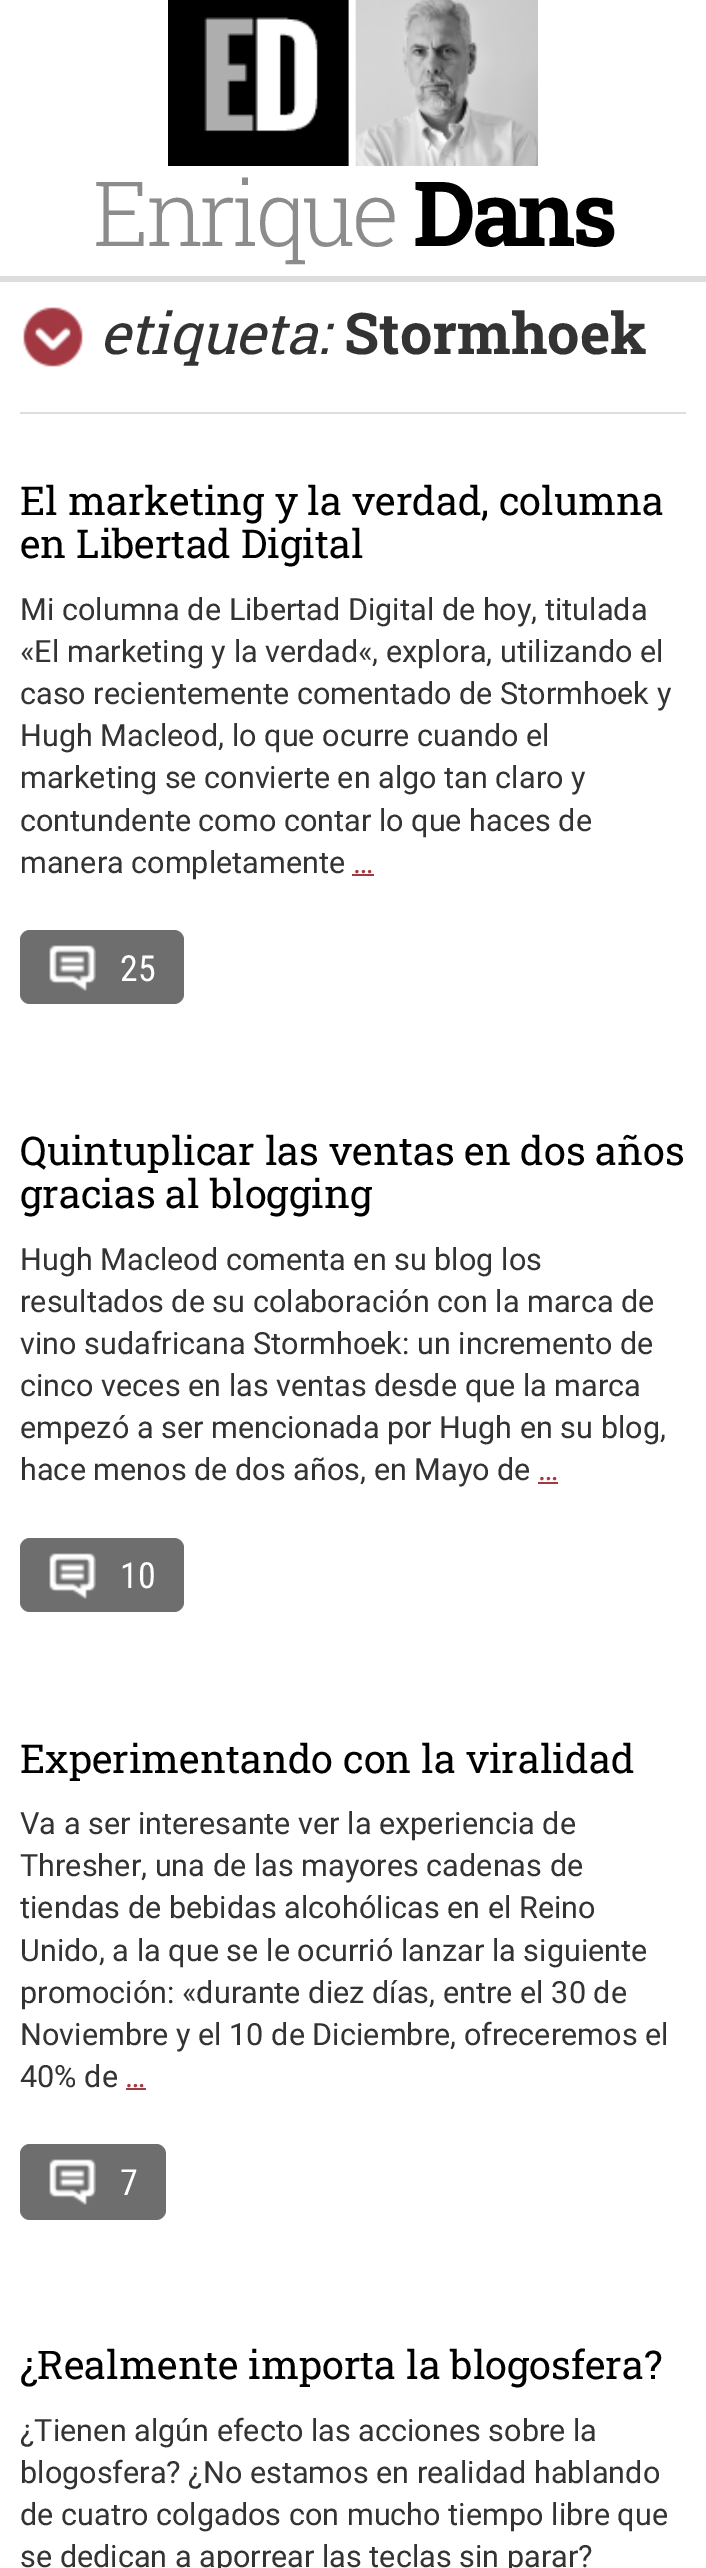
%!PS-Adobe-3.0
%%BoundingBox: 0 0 706 2568
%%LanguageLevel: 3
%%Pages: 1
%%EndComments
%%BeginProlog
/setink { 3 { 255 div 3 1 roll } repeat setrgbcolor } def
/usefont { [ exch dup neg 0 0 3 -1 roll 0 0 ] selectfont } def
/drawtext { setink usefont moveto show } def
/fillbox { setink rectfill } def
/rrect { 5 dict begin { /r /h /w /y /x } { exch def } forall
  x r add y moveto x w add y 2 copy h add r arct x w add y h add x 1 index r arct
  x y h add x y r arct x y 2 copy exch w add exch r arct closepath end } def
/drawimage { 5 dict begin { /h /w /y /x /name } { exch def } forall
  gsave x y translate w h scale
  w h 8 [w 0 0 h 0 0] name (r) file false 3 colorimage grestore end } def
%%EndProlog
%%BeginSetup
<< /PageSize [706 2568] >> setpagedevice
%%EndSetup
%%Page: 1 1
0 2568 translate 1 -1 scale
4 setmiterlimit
0 0 706 2568 255 255 255 fillbox
0 276 706 6 221 221 221 fillbox
(assets/img1.rgb) 168 0 370 166 drawimage
/RobotoSlab-Light 90 usefont
140 140 140 setink
93 246 moveto -4 0 (Enrique) ashow
/RobotoSlab-Bold 90 usefont
0 0 0 setink
413 246 moveto -4 0 (Dans) ashow
(assets/img2.rgb) 23 307 60 60 drawimage
20 412 666 2 221 221 221 fillbox
(etiqueta:) 100 354 /RobotoSlab-Italic 57.5 51 51 51 drawtext
(Stormhoek) 344 354 /RobotoSlab-Bold 57.5 51 51 51 drawtext
(El marketing y la verdad, columna) 20 515 /RobotoSlab-Regular 39.6 0 0 0 drawtext
(en Libertad Digital) 20 558 /RobotoSlab-Regular 39.6 0 0 0 drawtext
(Mi columna de Libertad Digital de hoy, titulada) 20 620 /Roboto-Regular 30.6 51 51 51 drawtext
(«El marketing y la verdad«, explora, utilizando el) 20 662 /Roboto-Regular 30.6 51 51 51 drawtext
(caso recientemente comentado de Stormhoek y) 20 704 /Roboto-Regular 30.6 51 51 51 drawtext
(Hugh Macleod, lo que ocurre cuando el) 20 746 /Roboto-Regular 30.6 51 51 51 drawtext
(marketing se convierte en algo tan claro y) 20 788 /Roboto-Regular 30.6 51 51 51 drawtext
(contundente como contar lo que haces de) 20 831 /Roboto-Regular 30.6 51 51 51 drawtext
(manera completamente) 20 873 /Roboto-Regular 30.6 51 51 51 drawtext
(…) 353 873 /Roboto-Regular 30.6 162 56 66 drawtext
352 874 22 2 162 56 66 fillbox
110 110 110 setink
20 930 164 74 10 rrect fill
(assets/img3.rgb) 49 945 47 46 drawimage
(25) 120 981 /RobotoCondensed-Regular 36 255 255 255 drawtext
(Quintuplicar las ventas en dos años) 20 1165 /RobotoSlab-Regular 39.6 0 0 0 drawtext
(gracias al blogging) 20 1208 /RobotoSlab-Regular 39.6 0 0 0 drawtext
(Hugh Macleod comenta en su blog los) 20 1270 /Roboto-Regular 30.6 51 51 51 drawtext
(resultados de su colaboración con la marca de) 20 1312 /Roboto-Regular 30.6 51 51 51 drawtext
(vino sudafricana Stormhoek: un incremento de) 20 1354 /Roboto-Regular 30.6 51 51 51 drawtext
(cinco veces en las ventas desde que la marca) 20 1396 /Roboto-Regular 30.6 51 51 51 drawtext
(empezó a ser mencionada por Hugh en su blog,) 20 1438 /Roboto-Regular 30.6 51 51 51 drawtext
(hace menos de dos años, en Mayo de) 20 1480 /Roboto-Regular 30.6 51 51 51 drawtext
(…) 538 1480 /Roboto-Regular 30.6 162 56 66 drawtext
538 1482 20 2 162 56 66 fillbox
110 110 110 setink
20 1538 164 74 10 rrect fill
(assets/img3.rgb) 49 1553 47 46 drawimage
(10) 120 1588 /RobotoCondensed-Regular 36 255 255 255 drawtext
(Experimentando con la viralidad) 20 1773 /RobotoSlab-Regular 39.6 0 0 0 drawtext
(Va a ser interesante ver la experiencia de) 20 1834 /Roboto-Regular 30.6 51 51 51 drawtext
(Thresher, una de las mayores cadenas de) 20 1876 /Roboto-Regular 30.6 51 51 51 drawtext
(tiendas de bebidas alcohólicas en el Reino) 20 1918 /Roboto-Regular 30.6 51 51 51 drawtext
(Unido, a la que se le ocurrió lanzar la siguiente) 20 1961 /Roboto-Regular 30.6 51 51 51 drawtext
(promoción: «durante diez días, entre el 30 de) 20 2003 /Roboto-Regular 30.6 51 51 51 drawtext
(Noviembre y el 10 de Diciembre, ofreceremos el) 20 2045 /Roboto-Regular 30.6 51 51 51 drawtext
(40% de) 20 2087 /Roboto-Regular 30.6 51 51 51 drawtext
(…) 125 2087 /Roboto-Regular 30.6 162 56 66 drawtext
126 2088 20 2 162 56 66 fillbox
110 110 110 setink
20 2144 146 76 10 rrect fill
(assets/img3.rgb) 49 2159 47 46 drawimage
(7) 120 2195 /RobotoCondensed-Regular 36 255 255 255 drawtext
(¿Realmente importa la blogosfera?) 20 2379 /RobotoSlab-Regular 39.6 0 0 0 drawtext
(¿Tienen algún efecto las acciones sobre la) 20 2441 /Roboto-Regular 30.6 51 51 51 drawtext
(blogosfera? ¿No estamos en realidad hablando) 20 2483 /Roboto-Regular 30.6 51 51 51 drawtext
(de cuatro colgados con mucho tiempo libre que) 20 2525 /Roboto-Regular 30.6 51 51 51 drawtext
(se dedican a aporrear las teclas sin parar?) 20 2567 /Roboto-Regular 30.6 51 51 51 drawtext
showpage
%%EOF
